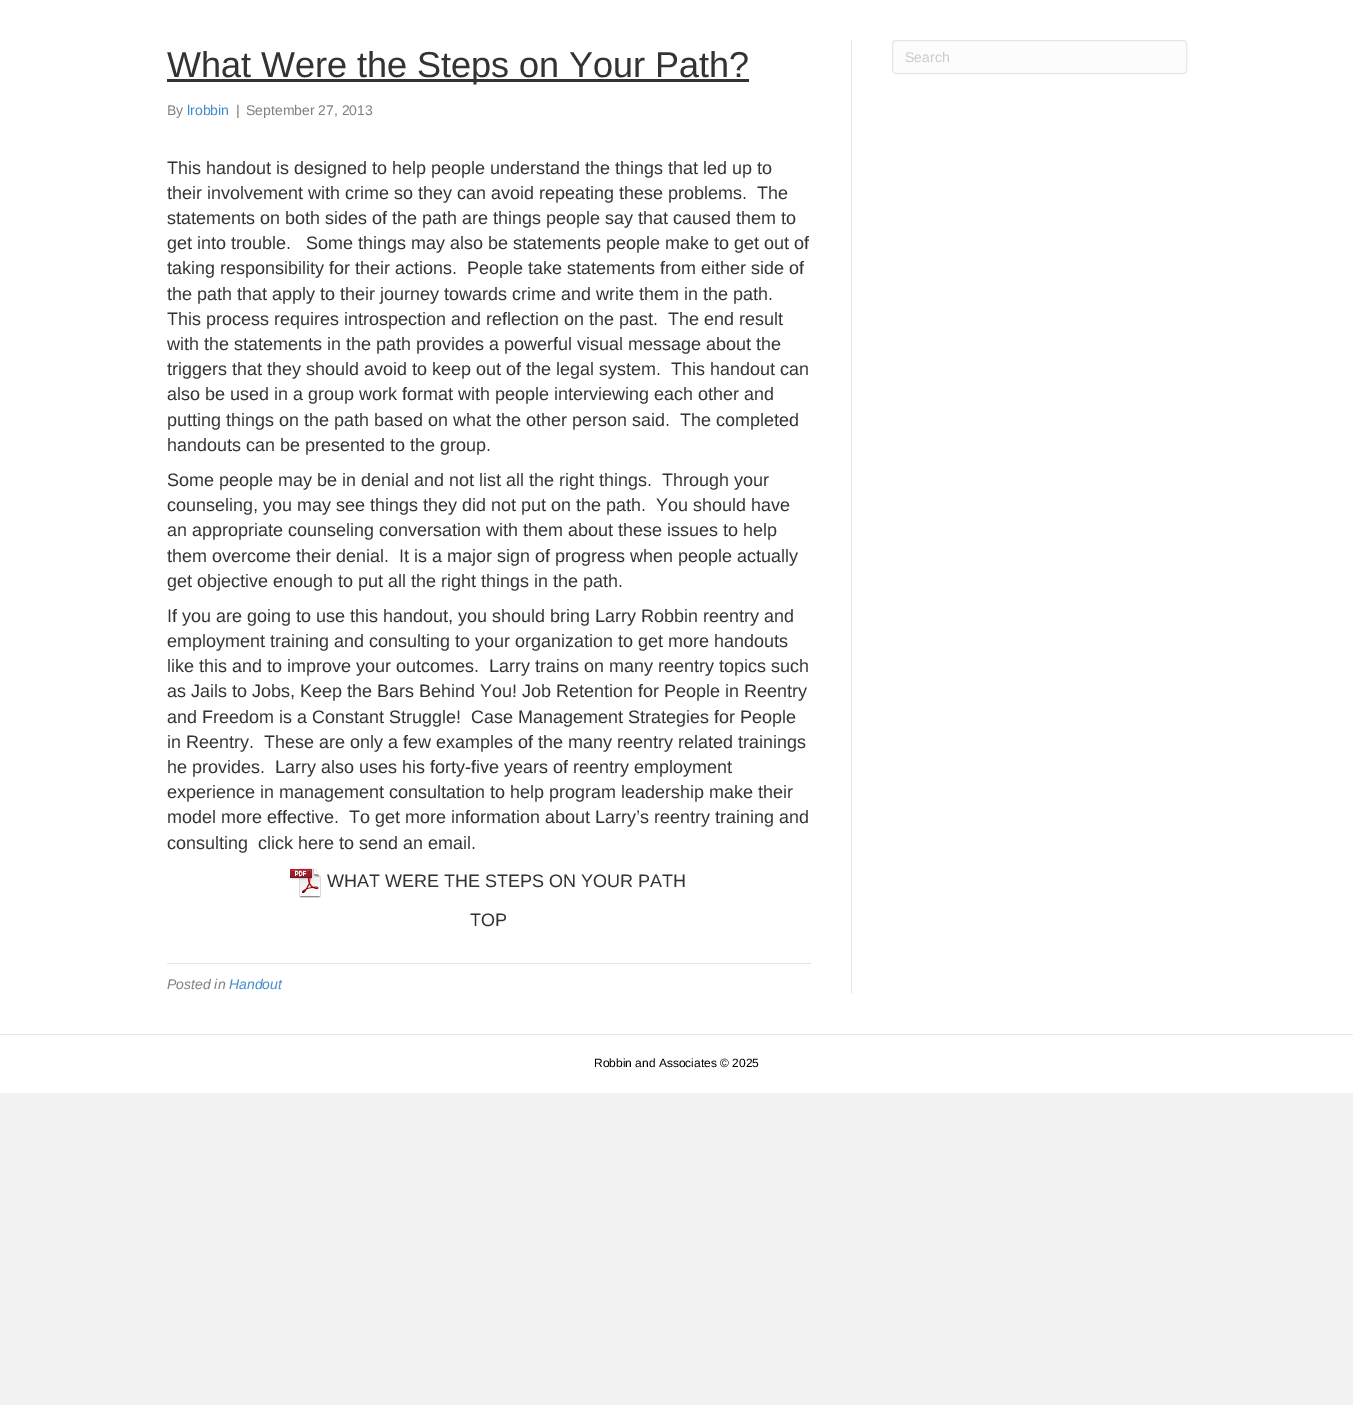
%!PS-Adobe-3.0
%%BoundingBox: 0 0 1353 1405
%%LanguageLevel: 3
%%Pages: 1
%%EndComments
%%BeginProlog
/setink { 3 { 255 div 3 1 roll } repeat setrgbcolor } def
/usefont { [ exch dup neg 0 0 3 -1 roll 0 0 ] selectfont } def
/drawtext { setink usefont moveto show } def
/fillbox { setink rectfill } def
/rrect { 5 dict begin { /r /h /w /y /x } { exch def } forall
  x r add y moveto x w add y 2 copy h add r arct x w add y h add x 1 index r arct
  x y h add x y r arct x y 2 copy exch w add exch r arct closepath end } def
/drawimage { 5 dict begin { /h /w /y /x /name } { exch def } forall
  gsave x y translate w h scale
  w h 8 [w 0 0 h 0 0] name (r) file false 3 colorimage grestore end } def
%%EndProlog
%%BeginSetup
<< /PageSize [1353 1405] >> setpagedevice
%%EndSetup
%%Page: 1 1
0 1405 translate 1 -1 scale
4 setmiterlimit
0 0 1353 1405 242 242 242 fillbox
0 0 1353 1034 255 255 255 fillbox
851 40 1 954 230 230 230 fillbox
167 79 582 3 51 51 51 fillbox
(What Were the Steps on Your Path?) 167 77 /LiberationSans-Regular 36 51 51 51 drawtext
(By) 167 115 /LiberationSans-Regular 14 128 128 128 drawtext
(lrobbin) 187 115 /LiberationSans-Regular 14 66 139 202 drawtext
(|) 236 115 /LiberationSans-Regular 14 128 128 128 drawtext
(September 27, 2013) 246 115 /LiberationSans-Regular 14 128 128 128 drawtext
(This handout is designed to help people understand the things that led up to) 167 174 /LiberationSans-Regular 18 51 51 51 drawtext
(their involvement with crime so they can avoid repeating these problems.  The) 167 199 /LiberationSans-Regular 18 51 51 51 drawtext
(statements on both sides of the path are things people say that caused them to) 167 224 /LiberationSans-Regular 18 51 51 51 drawtext
(get into trouble.   Some things may also be statements people make to get out of) 167 249 /LiberationSans-Regular 18 51 51 51 drawtext
(taking responsibility for their actions.  People take statements from either side of) 167 274 /LiberationSans-Regular 18 51 51 51 drawtext
(the path that apply to their journey towards crime and write them in the path.) 167 300 /LiberationSans-Regular 18 51 51 51 drawtext
(This process requires introspection and reflection on the past.  The end result) 167 325 /LiberationSans-Regular 18 51 51 51 drawtext
(with the statements in the path provides a powerful visual message about the) 167 350 /LiberationSans-Regular 18 51 51 51 drawtext
(triggers that they should avoid to keep out of the legal system.  This handout can) 167 375 /LiberationSans-Regular 18 51 51 51 drawtext
(also be used in a group work format with people interviewing each other and) 167 400 /LiberationSans-Regular 18 51 51 51 drawtext
(putting things on the path based on what the other person said.  The completed) 167 426 /LiberationSans-Regular 18 51 51 51 drawtext
(handouts can be presented to the group.) 167 451 /LiberationSans-Regular 18 51 51 51 drawtext
(Some people may be in denial and not list all the right things.  Through your) 167 486 /LiberationSans-Regular 18 51 51 51 drawtext
(counseling, you may see things they did not put on the path.  You should have) 167 511 /LiberationSans-Regular 18 51 51 51 drawtext
(an appropriate counseling conversation with them about these issues to help) 167 536 /LiberationSans-Regular 18 51 51 51 drawtext
(them overcome their denial.  It is a major sign of progress when people actually) 167 562 /LiberationSans-Regular 18 51 51 51 drawtext
(get objective enough to put all the right things in the path.) 167 587 /LiberationSans-Regular 18 51 51 51 drawtext
(If you are going to use this handout, you should bring Larry Robbin reentry and) 167 622 /LiberationSans-Regular 18 51 51 51 drawtext
(employment training and consulting to your organization to get more handouts) 167 647 /LiberationSans-Regular 18 51 51 51 drawtext
(like this and to improve your outcomes.  Larry trains on many reentry topics such) 167 672 /LiberationSans-Regular 18 51 51 51 drawtext
(as Jails to Jobs, Keep the Bars Behind You! Job Retention for People in Reentry) 167 697 /LiberationSans-Regular 18 51 51 51 drawtext
(and Freedom is a Constant Struggle!  Case Management Strategies for People) 167 723 /LiberationSans-Regular 18 51 51 51 drawtext
(in Reentry.  These are only a few examples of the many reentry related trainings) 167 748 /LiberationSans-Regular 18 51 51 51 drawtext
(he provides.  Larry also uses his forty-five years of reentry employment) 167 773 /LiberationSans-Regular 18 51 51 51 drawtext
(experience in management consultation to help program leadership make their) 167 798 /LiberationSans-Regular 18 51 51 51 drawtext
(model more effective.  To get more information about Larry’s reentry training and) 167 823 /LiberationSans-Regular 18 51 51 51 drawtext
(consulting) 167 849 /LiberationSans-Regular 18 51 51 51 drawtext
(click here to send an email.) 258 849 /LiberationSans-Regular 18 51 51 51 drawtext
(assets/img1.rgb) 290 868 31 30 drawimage
(WHAT WERE THE STEPS ON YOUR PATH) 327 887 /LiberationSans-Regular 18 51 51 51 drawtext
(TOP) 470 926 /LiberationSans-Regular 18 51 51 51 drawtext
167 963 644 1 230 230 230 fillbox
(Posted in) 167 989 /LiberationSans-Italic 14 128 128 128 drawtext
(Handout) 229 989 /LiberationSans-Italic 14 66 139 202 drawtext
252 252 252 setink
892.5 40.5 294 33 3.5 rrect gsave fill grestore
230 230 230 setink
stroke
(Search) 905 62 /LiberationSans-Regular 14 202 202 202 drawtext
0 1035 1353 58 255 255 255 fillbox
0 1034 1353 1 230 230 230 fillbox
(Robbin and Associates © 2025) 594 1067 /LiberationSans-Regular 12 0 0 0 drawtext
showpage
%%EOF
